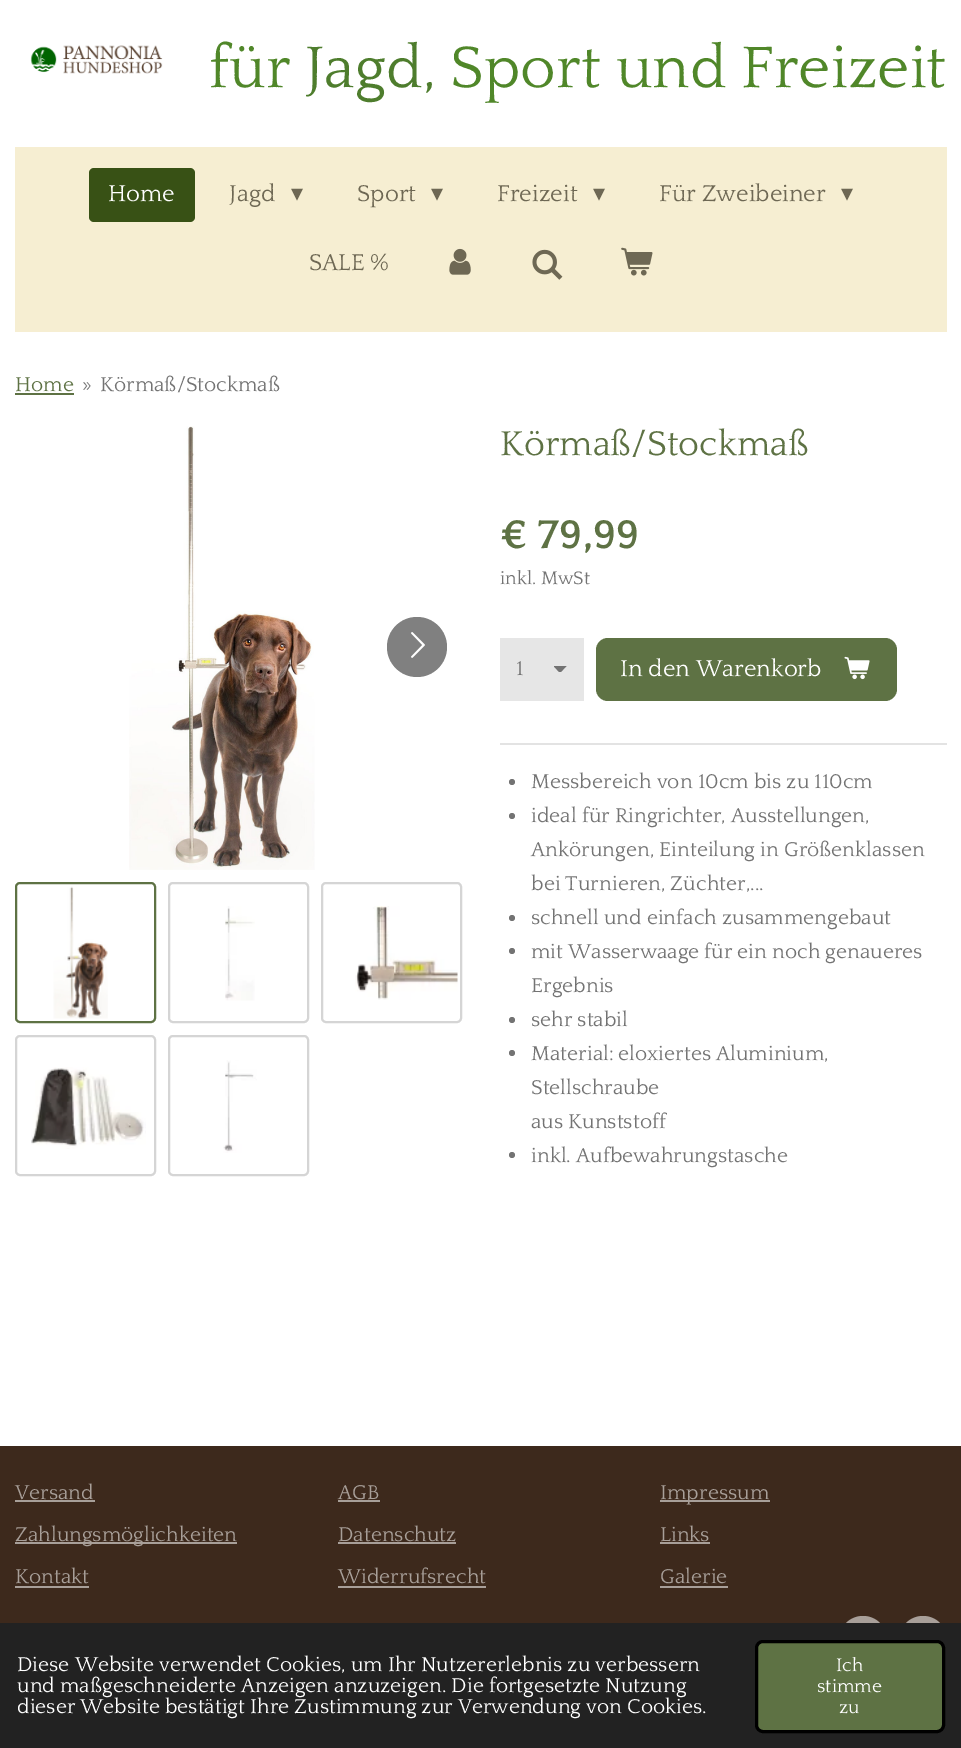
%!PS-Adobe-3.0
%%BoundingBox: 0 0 961 1748
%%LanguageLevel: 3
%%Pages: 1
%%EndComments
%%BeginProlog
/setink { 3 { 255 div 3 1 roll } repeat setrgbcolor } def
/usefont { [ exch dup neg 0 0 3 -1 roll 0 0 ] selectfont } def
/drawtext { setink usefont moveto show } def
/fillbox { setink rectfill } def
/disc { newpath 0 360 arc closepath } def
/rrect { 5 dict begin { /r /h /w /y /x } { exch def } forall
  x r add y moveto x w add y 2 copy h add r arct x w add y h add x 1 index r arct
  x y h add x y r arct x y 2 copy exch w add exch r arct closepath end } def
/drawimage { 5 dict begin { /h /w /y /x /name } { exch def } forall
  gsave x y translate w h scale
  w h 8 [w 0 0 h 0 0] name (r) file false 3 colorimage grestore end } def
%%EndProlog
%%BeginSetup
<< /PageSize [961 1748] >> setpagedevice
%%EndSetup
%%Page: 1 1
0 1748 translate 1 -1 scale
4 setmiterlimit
0 0 961 1748 255 255 255 fillbox
(assets/img1.rgb) 30 45 133 29 drawimage
(für) 209 87 /Quattrocento-Regular 61.25 80 135 41 drawtext
(Jagd,) 305 87 /Quattrocento-Regular 61.25 78 125 45 drawtext
(Sport und Freizeit) 450 87 /Quattrocento-Regular 61.25 80 135 41 drawtext
15 147 932 185 246 238 210 fillbox
56 81 21 setink
89 168 106 54 5 rrect fill
(Home) 108 201 /Quattrocento-Regular 24 255 255 255 drawtext
(Jagd) 229 201 /Quattrocento-Regular 24 110 104 84 drawtext
(▾) 291 201 /DejaVuSans-Regular 24 110 104 84 drawtext
(Sport) 357 201 /Quattrocento-Regular 24 110 104 84 drawtext
(▾) 431 201 /DejaVuSans-Regular 24 110 104 84 drawtext
(Freizeit) 497 201 /Quattrocento-Regular 24 110 104 84 drawtext
(▾) 593 201 /DejaVuSans-Regular 24 110 104 84 drawtext
(Für Zweibeiner) 659 201 /Quattrocento-Regular 24 110 104 84 drawtext
(▾) 841 201 /DejaVuSans-Regular 24 110 104 84 drawtext
(SALE %) 309 270 /Quattrocento-Regular 24 110 104 84 drawtext
(assets/img2.rgb) 449 248 22 27 drawimage
(assets/img3.rgb) 532 249 31 31 drawimage
(assets/img4.rgb) 621 247 32 29 drawimage
(Home) 15 391 /Quattrocento-Regular 21 94 114 68 drawtext
15 393 59 2 94 114 68 fillbox
(») 82 391 /Quattrocento-Regular 21 115 115 115 drawtext
(Körmaß/Stockmaß) 100 391 /Quattrocento-Regular 21 115 115 115 drawtext
(assets/img5.rgb) 129 426 186 444 drawimage
128 128 128 setink
417 647 30 disc fill
(assets/img6.rgb) 411 632 14 26 drawimage
94 114 68 setink
2 setlinewidth
16 883 139 139 4 rrect stroke
(assets/img7.rgb) 53 886 55 133 drawimage
213 213 213 setink
169 883 139 139 4 rrect stroke
(assets/img8.rgb) 225 906 30 95 drawimage
322 883 139 139 4 rrect stroke
(assets/img9.rgb) 355 906 103 94 drawimage
16 1036 139 139 4 rrect stroke
(assets/img10.rgb) 31 1067 115 82 drawimage
169 1036 139 139 4 rrect stroke
(assets/img11.rgb) 223 1060 34 93 drawimage
(Körmaß/Stockmaß) 500 455 /Quattrocento-Regular 36 94 114 68 drawtext
(€ 79,99) 500 548 /Quattrocento-Bold 42 94 114 68 drawtext
(inkl. MwSt) 500 584 /Quattrocento-Regular 19 115 115 115 drawtext
500 638 84 63 230 230 230 fillbox
gsave
554 666 13 6 rectclip
115 115 115 setink
560 673 moveto 553.5 666 lineto 566.5 666 lineto closepath fill
grestore
(1) 516 675 /Quattrocento-Regular 21 115 115 115 drawtext
94 114 68 setink
596 638 301 63 12 rrect fill
(In den Warenkorb) 620 676 /Quattrocento-Regular 24 255 255 255 drawtext
(assets/img12.rgb) 844 656 26 24 drawimage
500 743 447 2 227 227 227 fillbox
115 115 115 setink
512 782 3 disc fill
(Messbereich von 10cm bis zu 110cm) 531 788 /Quattrocento-Regular 21 115 115 115 drawtext
512 816 3 disc fill
(ideal für Ringrichter, Ausstellungen,) 531 822 /Quattrocento-Regular 21 115 115 115 drawtext
(Ankörungen, Einteilung in Größenklassen) 531 856 /Quattrocento-Regular 21 115 115 115 drawtext
(bei Turnieren, Züchter,...) 531 890 /Quattrocento-Regular 21 115 115 115 drawtext
512 918 3 disc fill
(schnell und einfach zusammengebaut) 531 924 /Quattrocento-Regular 21 115 115 115 drawtext
512 951 3 disc fill
(mit Wasserwaage für ein noch genaueres) 531 958 /Quattrocento-Regular 21 115 115 115 drawtext
(Ergebnis) 531 992 /Quattrocento-Regular 21 115 115 115 drawtext
512 1020 3 disc fill
(sehr stabil) 531 1026 /Quattrocento-Regular 21 115 115 115 drawtext
512 1053 3 disc fill
(Material: eloxiertes Aluminium,) 531 1060 /Quattrocento-Regular 21 115 115 115 drawtext
(Stellschraube) 531 1094 /Quattrocento-Regular 21 115 115 115 drawtext
(aus Kunststoff) 531 1128 /Quattrocento-Regular 21 115 115 115 drawtext
512 1155 3 disc fill
(inkl. Aufbewahrungstasche) 531 1162 /Quattrocento-Regular 21 115 115 115 drawtext
0 1446 961 177 61 41 28 fillbox
(Versand) 15 1499 /Quattrocento-Regular 21 168 159 153 drawtext
15 1500 80 2 168 159 153 fillbox
15 1542 222 2 168 159 153 fillbox
(Zahlungsmöglichkeiten) 15 1541 /Quattrocento-Regular 21 168 159 153 drawtext
(Kontakt) 15 1583 /Quattrocento-Regular 21 168 159 153 drawtext
15 1586 74 2 168 159 153 fillbox
(AGB) 338 1499 /Quattrocento-Regular 21 168 159 153 drawtext
338 1500 42 2 168 159 153 fillbox
(Datenschutz) 338 1541 /Quattrocento-Regular 21 168 159 153 drawtext
338 1542 118 2 168 159 153 fillbox
(Widerrufsrecht) 338 1583 /Quattrocento-Regular 21 168 159 153 drawtext
338 1586 148 2 168 159 153 fillbox
660 1500 110 2 168 159 153 fillbox
(Impressum) 660 1499 /Quattrocento-Regular 21 168 159 153 drawtext
(Links) 660 1541 /Quattrocento-Regular 21 168 159 153 drawtext
660 1542 50 2 168 159 153 fillbox
(Galerie) 660 1583 /Quattrocento-Regular 21 168 159 153 drawtext
660 1586 68 2 168 159 153 fillbox
863 1640 24 disc fill
923 1640 24 disc fill
0 1623 961 125 34 34 34 fillbox
(Diese Website verwendet Cookies, um Ihr Nutzererlebnis zu verbessern) 17 1671 /Quattrocento-Regular 21 255 255 255 drawtext
(und maßgeschneiderte Anzeigen anzuzeigen. Die fortgesetzte Nutzung) 17 1692 /Quattrocento-Regular 21 255 255 255 drawtext
(dieser Website bestätigt Ihre Zustimmung zur Verwendung von Cookies.) 17 1713 /Quattrocento-Regular 21 255 255 255 drawtext
94 114 68 setink
756.5 1641.5 187 90 6.5 rrect gsave fill grestore
0 0 0 setink
3 setlinewidth
stroke
(Ich) 836 1671 /Quattrocento-Regular 19 255 255 255 drawtext
(stimme) 817 1692 /Quattrocento-Regular 19 255 255 255 drawtext
(zu) 839 1713 /Quattrocento-Regular 19 255 255 255 drawtext
showpage
%%EOF
